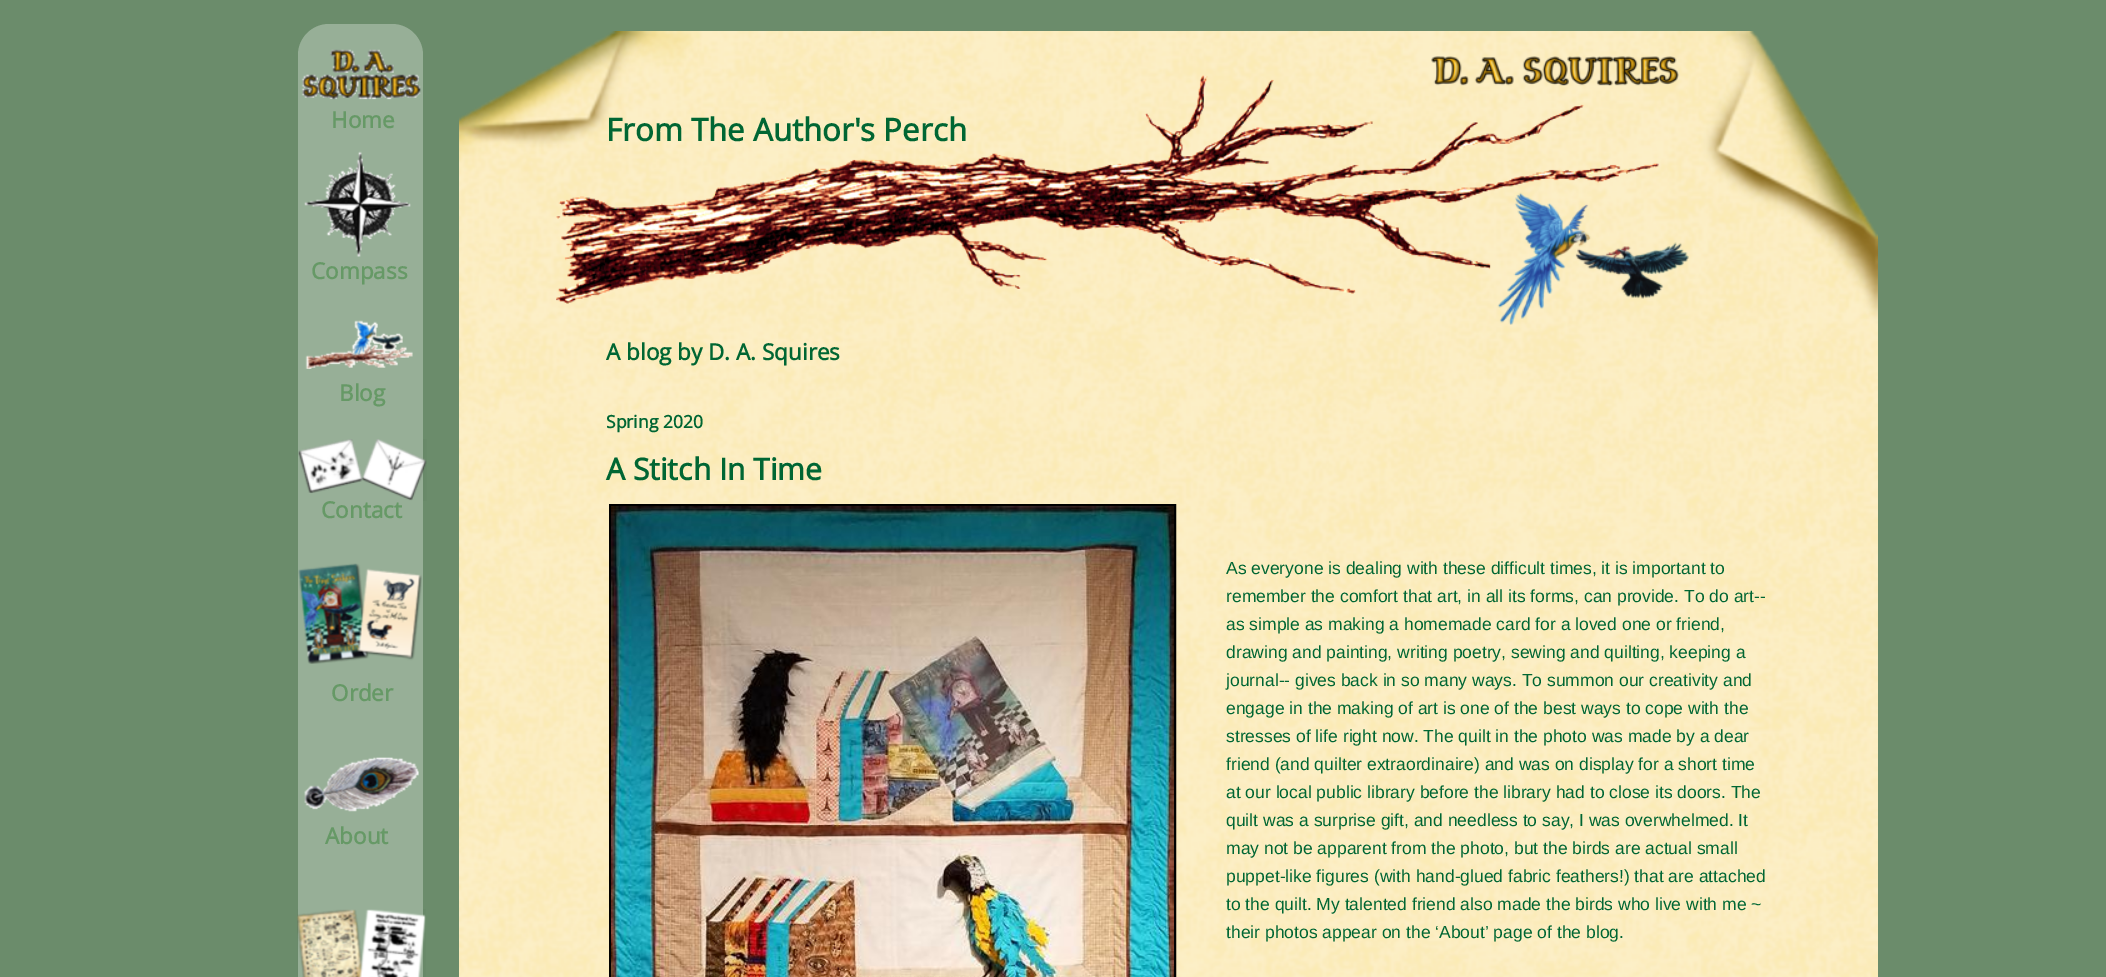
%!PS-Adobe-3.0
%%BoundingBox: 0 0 2106 977
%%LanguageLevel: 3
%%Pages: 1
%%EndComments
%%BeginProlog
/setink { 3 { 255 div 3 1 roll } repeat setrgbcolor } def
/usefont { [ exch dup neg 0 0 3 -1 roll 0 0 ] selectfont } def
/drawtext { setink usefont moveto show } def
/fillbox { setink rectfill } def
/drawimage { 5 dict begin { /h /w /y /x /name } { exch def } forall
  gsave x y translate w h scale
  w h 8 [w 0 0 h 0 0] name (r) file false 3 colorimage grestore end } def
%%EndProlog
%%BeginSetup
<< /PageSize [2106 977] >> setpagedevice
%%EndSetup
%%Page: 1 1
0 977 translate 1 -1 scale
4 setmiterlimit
0 0 2106 977 107 140 107 fillbox
151 175 151 setink
329 24 moveto 392 24 lineto 409 24 423 38 423 55 curveto 423 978 lineto 298 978 lineto 298 55 lineto 298 38 312 24 329 24 curveto closepath fill
(assets/img1.rgb) 459 31 1419 946 drawimage
(assets/img2.rgb) 301 49 120 51 drawimage
(assets/img4.rgb) 556 75 1103 229 drawimage
(assets/img3.rgb) 1431 56 248 30 drawimage
(Home) 331 128 /OpenSans-Bold 22.5 102 153 102 drawtext
(assets/img5.rgb) 304 151 107 106 drawimage
(From The Author's Perch) 606 141 /OpenSans-Bold 31.25 0 102 51 drawtext
(A blog by D. A. Squires) 606 360 /OpenSans-Bold 22.5 0 102 51 drawtext
(assets/img6.rgb) 1497 192 192 133 drawimage
(Compass) 311 279 /OpenSans-Bold 22.5 102 153 102 drawtext
(assets/img7.rgb) 305 320 108 49 drawimage
(Blog) 339 401 /OpenSans-Bold 22.5 102 153 102 drawtext
(Spring 2020) 606 428 /OpenSans-Bold 17.5 0 102 51 drawtext
(assets/img8.rgb) 298 439 129 62 drawimage
(A Stitch In Time) 606 480 /OpenSans-Bold 30 0 102 51 drawtext
(Contact) 321 518 /OpenSans-Bold 22.5 102 153 102 drawtext
0 0 0 setink
3 setlinewidth
610.5 505.5 564 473 rectstroke
(assets/img9.rgb) 611 506 563 471 drawimage
(As everyone is dealing with these difficult times, it is important to) 1226 574 /LiberationSans-Regular 17.5 0 102 51 drawtext
(remember the comfort that art, in all its forms, can provide. To do art--) 1226 602 /LiberationSans-Regular 17.5 0 102 51 drawtext
(as simple as making a homemade card for a loved one or friend,) 1226 630 /LiberationSans-Regular 17.5 0 102 51 drawtext
(drawing and painting, writing poetry, sewing and quilting, keeping a) 1226 658 /LiberationSans-Regular 17.5 0 102 51 drawtext
(journal-- gives back in so many ways. To summon our creativity and) 1226 686 /LiberationSans-Regular 17.5 0 102 51 drawtext
(engage in the making of art is one of the best ways to cope with the) 1226 714 /LiberationSans-Regular 17.5 0 102 51 drawtext
(stresses of life right now. The quilt in the photo was made by a dear) 1226 742 /LiberationSans-Regular 17.5 0 102 51 drawtext
(friend \(and quilter extraordinaire\) and was on display for a short time) 1226 770 /LiberationSans-Regular 17.5 0 102 51 drawtext
(at our local public library before the library had to close its doors. The) 1226 798 /LiberationSans-Regular 17.5 0 102 51 drawtext
(quilt was a surprise gift, and needless to say, I was overwhelmed. It) 1226 826 /LiberationSans-Regular 17.5 0 102 51 drawtext
(may not be apparent from the photo, but the birds are actual small) 1226 854 /LiberationSans-Regular 17.5 0 102 51 drawtext
(puppet-like figures \(with hand-glued fabric feathers!\) that are attached) 1226 882 /LiberationSans-Regular 17.5 0 102 51 drawtext
(to the quilt. My talented friend also made the birds who live with me ~) 1226 910 /LiberationSans-Regular 17.5 0 102 51 drawtext
(their photos appear on the ‘About’ page of the blog.) 1226 938 /LiberationSans-Regular 17.5 0 102 51 drawtext
(assets/img10.rgb) 298 563 124 101 drawimage
(Order) 331 701 /OpenSans-Bold 22.5 102 153 102 drawtext
(assets/img11.rgb) 304 757 115 55 drawimage
(About) 325 844 /OpenSans-Bold 22.5 102 153 102 drawtext
(assets/img12.rgb) 297 909 129 68 drawimage
showpage
%%EOF
